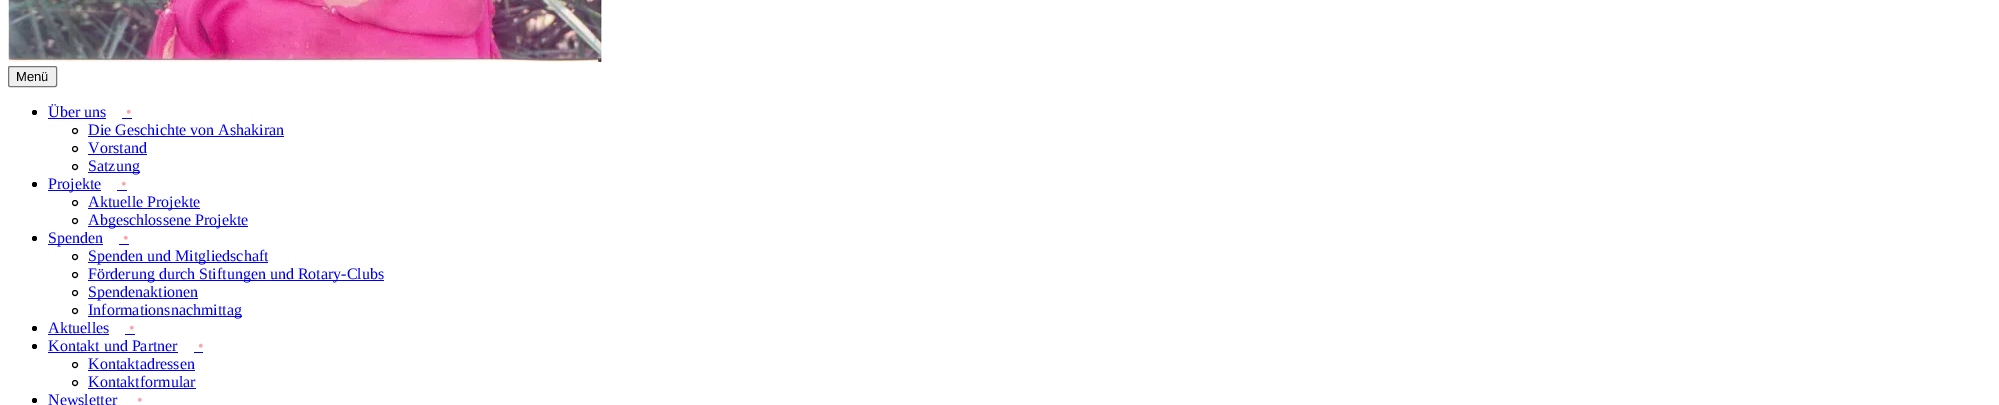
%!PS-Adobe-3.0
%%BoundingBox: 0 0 1999 405
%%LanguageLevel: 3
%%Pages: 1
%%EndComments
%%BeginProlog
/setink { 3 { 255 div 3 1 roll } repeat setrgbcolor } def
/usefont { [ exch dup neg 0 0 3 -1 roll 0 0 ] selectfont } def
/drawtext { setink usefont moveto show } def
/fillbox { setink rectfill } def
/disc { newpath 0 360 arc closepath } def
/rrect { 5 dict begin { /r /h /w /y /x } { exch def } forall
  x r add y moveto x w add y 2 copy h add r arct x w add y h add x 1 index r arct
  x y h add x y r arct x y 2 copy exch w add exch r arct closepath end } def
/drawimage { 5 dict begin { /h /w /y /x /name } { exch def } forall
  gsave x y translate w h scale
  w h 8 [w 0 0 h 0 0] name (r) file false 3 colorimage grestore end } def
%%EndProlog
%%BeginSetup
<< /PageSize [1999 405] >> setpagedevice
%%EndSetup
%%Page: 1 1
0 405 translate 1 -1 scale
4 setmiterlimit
0 0 1999 405 255 255 255 fillbox
(assets/img1.rgb) 8 0 594 62 drawimage
239 239 239 setink
8.5 66.5 48 20 1.5 rrect gsave fill grestore
118 118 118 setink
stroke
(Menü) 16 81 /LiberationSans-Regular 13 0 0 0 drawtext
34.5 112.5 2.5 disc fill
(Über uns) 48 117 /LiberationSerif-Regular 16 0 0 238 drawtext
48 118 58 1 0 0 238 fillbox
(•) 126 117 /LiberationSerif-Regular 16 255 164 173 drawtext
122 118 10 1 0 0 238 fillbox
0 0 0 setink
75 131 2.5 disc stroke
(Die Geschichte von Ashakiran) 88 135 /LiberationSerif-Regular 16 0 0 238 drawtext
88 136 196 1 0 0 238 fillbox
0 0 0 setink
75 149 2.5 disc stroke
(Vorstand) 88 153 /LiberationSerif-Regular 16 0 0 238 drawtext
88 154 59 1 0 0 238 fillbox
0 0 0 setink
75 167 2.5 disc stroke
88 172 52 1 0 0 238 fillbox
(Satzung) 88 171 /LiberationSerif-Regular 16 0 0 238 drawtext
0 0 0 setink
34.5 184.5 2.5 disc fill
48 190 53 1 0 0 238 fillbox
(Projekte) 48 189 /LiberationSerif-Regular 16 0 0 238 drawtext
(•) 121 189 /LiberationSerif-Regular 16 255 164 173 drawtext
117 190 10 1 0 0 238 fillbox
0 0 0 setink
75 203 2.5 disc stroke
88 208 112 1 0 0 238 fillbox
(Aktuelle Projekte) 88 207 /LiberationSerif-Regular 16 0 0 238 drawtext
0 0 0 setink
75 221 2.5 disc stroke
88 226 160 1 0 0 238 fillbox
(Abgeschlossene Projekte) 88 225 /LiberationSerif-Regular 16 0 0 238 drawtext
0 0 0 setink
34.5 238.5 2.5 disc fill
48 244 55 1 0 0 238 fillbox
(Spenden) 48 243 /LiberationSerif-Regular 16 0 0 238 drawtext
(•) 123 243 /LiberationSerif-Regular 16 255 164 173 drawtext
119 244 10 1 0 0 238 fillbox
0 0 0 setink
75 257 2.5 disc stroke
88 262 180 1 0 0 238 fillbox
(Spenden und Mitgliedschaft) 88 261 /LiberationSerif-Regular 16 0 0 238 drawtext
0 0 0 setink
75 275 2.5 disc stroke
88 280 296 1 0 0 238 fillbox
(Förderung durch Stiftungen und Rotary-Clubs) 88 279 /LiberationSerif-Regular 16 0 0 238 drawtext
0 0 0 setink
75 293 2.5 disc stroke
88 298 110 1 0 0 238 fillbox
(Spendenaktionen) 88 297 /LiberationSerif-Regular 16 0 0 238 drawtext
0 0 0 setink
75 311 2.5 disc stroke
88 316 154 1 0 0 238 fillbox
(Informationsnachmittag) 88 315 /LiberationSerif-Regular 16 0 0 238 drawtext
0 0 0 setink
34.5 328.5 2.5 disc fill
(Aktuelles) 48 333 /LiberationSerif-Regular 16 0 0 238 drawtext
48 334 61 1 0 0 238 fillbox
(•) 129 333 /LiberationSerif-Regular 16 255 164 173 drawtext
125 334 10 1 0 0 238 fillbox
0 0 0 setink
34.5 346.5 2.5 disc fill
(Kontakt und Partner) 48 351 /LiberationSerif-Regular 16 0 0 238 drawtext
48 352 130 1 0 0 238 fillbox
(•) 198 351 /LiberationSerif-Regular 16 255 164 173 drawtext
194 352 9 1 0 0 238 fillbox
0 0 0 setink
75 365 2.5 disc stroke
(Kontaktadressen) 88 369 /LiberationSerif-Regular 16 0 0 238 drawtext
88 370 107 1 0 0 238 fillbox
0 0 0 setink
75 383 2.5 disc stroke
(Kontaktformular) 88 387 /LiberationSerif-Regular 16 0 0 238 drawtext
88 388 108 1 0 0 238 fillbox
0 0 0 setink
34.5 400.5 2.5 disc fill
(Newsletter) 48 405 /LiberationSerif-Regular 16 0 0 238 drawtext
(•) 137 405 /LiberationSerif-Regular 16 255 164 173 drawtext
showpage
%%EOF
